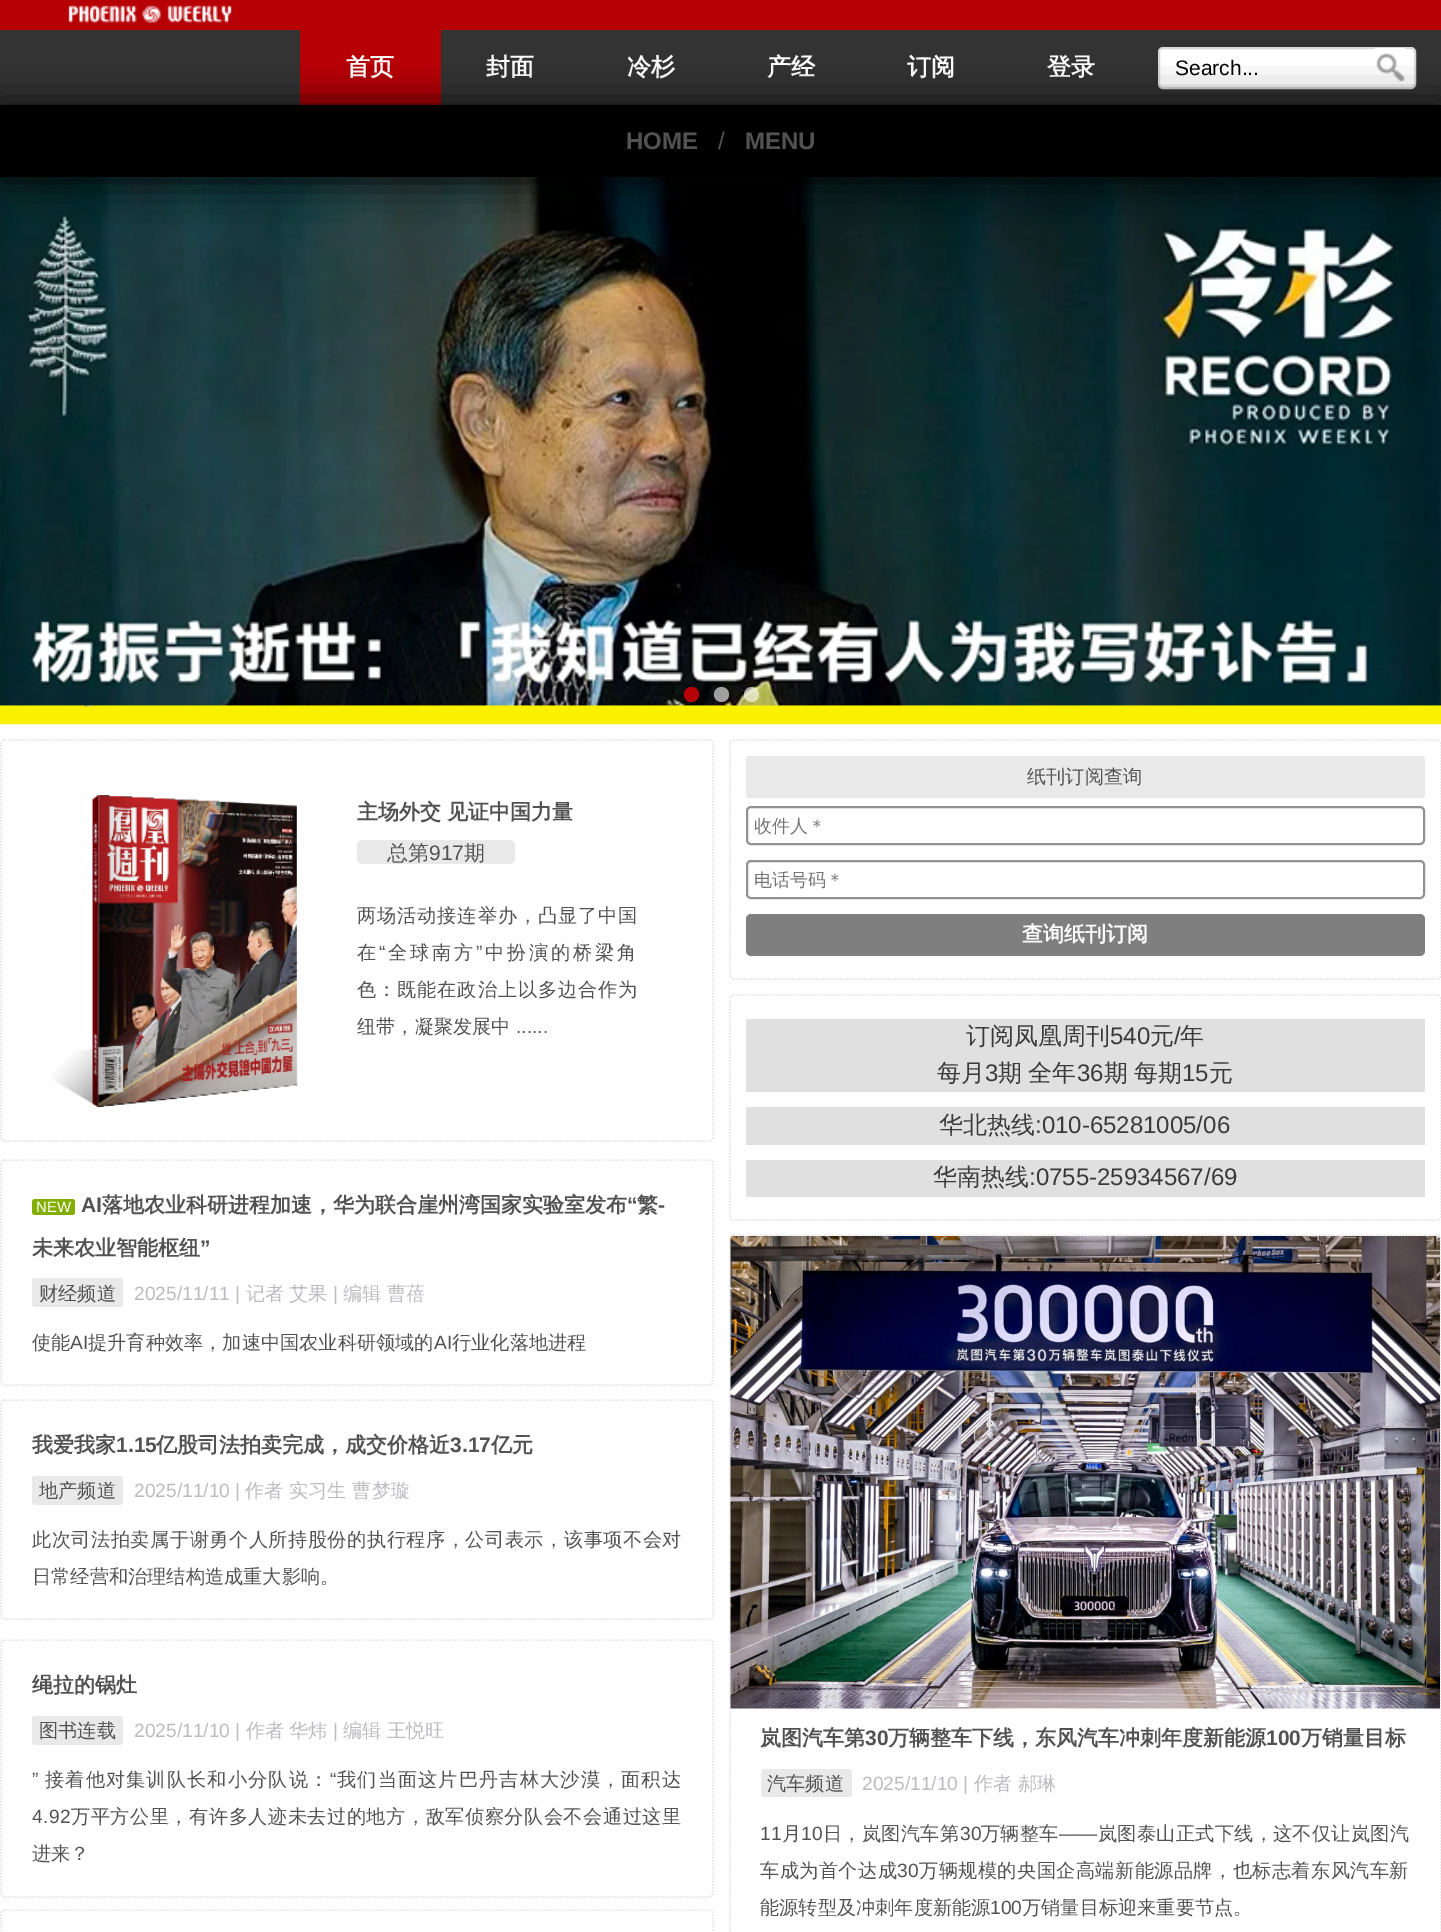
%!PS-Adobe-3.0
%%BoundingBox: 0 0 1441 1932
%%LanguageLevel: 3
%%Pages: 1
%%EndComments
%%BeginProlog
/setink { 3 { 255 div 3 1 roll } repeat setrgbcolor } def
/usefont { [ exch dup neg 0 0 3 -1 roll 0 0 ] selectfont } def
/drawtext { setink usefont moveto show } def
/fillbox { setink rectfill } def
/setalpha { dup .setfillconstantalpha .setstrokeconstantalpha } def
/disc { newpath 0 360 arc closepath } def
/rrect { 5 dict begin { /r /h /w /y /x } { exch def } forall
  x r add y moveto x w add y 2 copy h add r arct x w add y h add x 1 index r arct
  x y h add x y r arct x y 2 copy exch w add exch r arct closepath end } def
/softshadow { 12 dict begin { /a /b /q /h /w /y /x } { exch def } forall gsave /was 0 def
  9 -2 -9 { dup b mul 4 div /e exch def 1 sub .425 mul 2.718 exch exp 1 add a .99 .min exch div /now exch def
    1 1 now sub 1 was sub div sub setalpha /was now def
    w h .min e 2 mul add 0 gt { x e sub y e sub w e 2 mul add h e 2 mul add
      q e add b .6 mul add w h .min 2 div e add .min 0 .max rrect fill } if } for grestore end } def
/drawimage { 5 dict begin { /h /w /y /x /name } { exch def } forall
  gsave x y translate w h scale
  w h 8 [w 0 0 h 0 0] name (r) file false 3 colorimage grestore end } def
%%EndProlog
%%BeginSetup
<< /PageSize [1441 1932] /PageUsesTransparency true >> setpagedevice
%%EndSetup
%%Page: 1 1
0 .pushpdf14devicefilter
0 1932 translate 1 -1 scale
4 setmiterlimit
0 0 1441 1932 255 255 255 fillbox
0 0 1441 30 182 0 5 fillbox
(assets/img1.rgb) 68 5 164 18 drawimage
0 30 300 75 51 51 51 fillbox
441 30 1000 75 51 51 51 fillbox
300 30 141 75 182 0 5 fillbox
(首页) 346 75 /WenQuanYiZenHei-Bold 24 255 255 255 drawtext
(封面) 486 75 /WenQuanYiZenHei-Bold 24 255 255 255 drawtext
(冷杉) 627 75 /WenQuanYiZenHei-Bold 24 255 255 255 drawtext
(产经) 767 75 /WenQuanYiZenHei-Bold 24 255 255 255 drawtext
(订阅) 907 75 /WenQuanYiZenHei-Bold 24 255 255 255 drawtext
(登录) 1047 75 /WenQuanYiZenHei-Bold 24 255 255 255 drawtext
1159 48 256 40 4 rrect gsave fill grestore
217 217 217 setink
2 setlinewidth
stroke
(Search...) 1175 75 /LiberationSans-Regular 21 0 0 0 drawtext
255 255 255 setink
1370 48 40 38 8 rrect fill
(assets/img2.rgb) 1376 53 29 29 drawimage
(assets/img3.rgb) 0 177 1441 548 drawimage
0 0 0 setink
0 108 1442 72 0 19 1 softshadow
0 105 1441 72 0 0 0 fillbox
(HOME) 626 149 /LiberationSans-Bold 24 82 82 82 drawtext
(/) 718 149 /LiberationSans-Regular 24 82 82 82 drawtext
(MENU) 745 149 /LiberationSans-Bold 24 82 82 82 drawtext
182 0 5 setink
691.5 694.5 7.5 disc fill
0.6 setalpha
255 255 255 setink
721.5 694.5 7.5 disc fill
751.5 694.5 7.5 disc fill
1 setalpha
229 229 229 setink
1.5 setlinewidth
[1.5 1.5] 0 setdash
4.5 740 moveto 709.5 740 lineto 711.5 740 713 742 713 744 curveto 713 1137 lineto 713 1139 711.5 1141 709.5 1141 curveto 4.5 1141 lineto 2.5 1141 1 1139 1 1137 curveto 1 744 lineto 1 742 2.5 740 4.5 740 curveto closepath stroke
(assets/img4.rgb) 51 794 247 314 drawimage
(主场外交 见证中国力量) 357 819 /WenQuanYiZenHei-Bold 21 82 82 82 drawtext
233 233 233 setink
357 840 158 24 5 rrect fill
(总第) 387 860 /WenQuanYiZenHei-Medium 21 82 82 82 drawtext
(917) 429 860 /LiberationSans-Regular 21 82 82 82 drawtext
(期) 464 860 /WenQuanYiZenHei-Medium 21 82 82 82 drawtext
/WenQuanYiZenHei-Medium 19.2 usefont
357 922 moveto 0.9 0 (两场活动接连举办，凸显了中国) ashow
357 959 moveto 2.75 0 (在) ashow
/LiberationSans-Regular 19.2 usefont
379 959 moveto 2.75 0 (“) ashow
/WenQuanYiZenHei-Medium 19.2 usefont
388 959 moveto 2.75 0 (全球南方) ashow
/LiberationSans-Regular 19.2 usefont
476 959 moveto 2.75 0 (”) ashow
/WenQuanYiZenHei-Medium 19.2 usefont
485 959 moveto 2.75 0 (中扮演的桥梁角) ashow
357 996 moveto 0.9 0 (色：既能在政治上以多边合作为) ashow
(纽带，凝聚发展中) 357 1033 /WenQuanYiZenHei-Medium 19.2 82 82 82 drawtext
(......) 516 1033 /LiberationSans-Regular 19.2 82 82 82 drawtext
229 229 229 setink
733.5 740 moveto 1437 740 lineto 1439 740 1441 742 1441 744 curveto 1441 975 lineto 1441 977 1439 979 1437 979 curveto 733.5 979 lineto 731.5 979 730 977 730 975 curveto 730 744 lineto 730 742 731.5 740 733.5 740 curveto closepath stroke
233 233 233 setink
746 756 679 42 3 rrect fill
(纸刊订阅查询) 1027 783 /WenQuanYiZenHei-Medium 19.2 82 82 82 drawtext
146 146 146 setink
2 setlinewidth
[] 0 setdash
747 807 677 37 4 rrect stroke
gsave
755 813 661 26 rectclip
(收件人＊) 754 832 /WenQuanYiZenHei-Medium 18 117 117 117 drawtext
grestore
747 861 677 37 4 rrect stroke
(电话号码＊) 754 886 /WenQuanYiZenHei-Medium 18 117 117 117 drawtext
127 127 127 setink
746 914 679 42 5 rrect fill
(查询纸刊订阅) 1022 941 /WenQuanYiZenHei-Bold 21 255 255 255 drawtext
229 229 229 setink
1.5 setlinewidth
[1.5 1.5] 0 setdash
733.5 995 moveto 1437 995 lineto 1439 995 1441 997 1441 999 curveto 1441 1216.5 lineto 1441 1218.5 1439 1220 1437 1220 curveto 733.5 1220 lineto 731.5 1220 730 1218.5 730 1216.5 curveto 730 999 lineto 730 997 731.5 995 733.5 995 curveto closepath stroke
746 1019 679 73 224 224 224 fillbox
(订阅凤凰周刊) 966 1044 /WenQuanYiZenHei-Medium 24 58 58 58 drawtext
(540) 1110 1044 /LiberationSans-Regular 24 58 58 58 drawtext
(元) 1150 1044 /WenQuanYiZenHei-Medium 24 58 58 58 drawtext
(/) 1174 1044 /LiberationSans-Regular 24 58 58 58 drawtext
(年) 1180 1044 /WenQuanYiZenHei-Medium 24 58 58 58 drawtext
(每月) 937 1081 /WenQuanYiZenHei-Medium 24 58 58 58 drawtext
(3) 985 1081 /LiberationSans-Regular 24 58 58 58 drawtext
/WenQuanYiZenHei-Medium 24 usefont
998 1081 moveto -1 0 32 (期 全年) widthshow
(36) 1077 1081 /LiberationSans-Regular 24 58 58 58 drawtext
/WenQuanYiZenHei-Medium 24 usefont
1104 1081 moveto -1 0 32 (期 每期) widthshow
(15) 1182 1081 /LiberationSans-Regular 24 58 58 58 drawtext
(元) 1209 1081 /WenQuanYiZenHei-Medium 24 58 58 58 drawtext
746 1107 679 38 224 224 224 fillbox
(华北热线) 939 1133 /WenQuanYiZenHei-Medium 24 58 58 58 drawtext
(:010-65281005/06) 1035 1133 /LiberationSans-Regular 24 58 58 58 drawtext
746 1160 679 37 224 224 224 fillbox
(华南热线) 933 1185 /WenQuanYiZenHei-Medium 24 58 58 58 drawtext
(:0755-25934567/69) 1029 1185 /LiberationSans-Regular 24 58 58 58 drawtext
229 229 229 setink
4.5 1160 moveto 709.5 1160 lineto 711.5 1160 713 1162 713 1164 curveto 713 1381.5 lineto 713 1383.5 711.5 1385 709.5 1385 curveto 4.5 1385 lineto 2.5 1385 1 1383.5 1 1381.5 curveto 1 1164 lineto 1 1162 2.5 1160 4.5 1160 curveto closepath stroke
131 174 0 setink
32 1199 43 16 3 rrect fill
(NEW) 36 1212 /LiberationSans-Regular 15 255 255 255 drawtext
(AI) 81 1212 /LiberationSans-Bold 21 82 82 82 drawtext
(落地农业科研进程加速，华为联合崖州湾国家实验室发布) 102 1212 /WenQuanYiZenHei-Bold 21 82 82 82 drawtext
(“) 627 1212 /LiberationSans-Bold 21 82 82 82 drawtext
(繁) 637 1212 /WenQuanYiZenHei-Bold 21 82 82 82 drawtext
(-) 658 1212 /LiberationSans-Bold 21 82 82 82 drawtext
(未来农业智能枢纽) 32 1255 /WenQuanYiZenHei-Bold 21 82 82 82 drawtext
(”) 200 1255 /LiberationSans-Bold 21 82 82 82 drawtext
233 233 233 setink
32 1278 91 29 3 rrect fill
(财经频道) 39 1300 /WenQuanYiZenHei-Medium 19.2 82 82 82 drawtext
(2025/11/11 |) 134 1300 /LiberationSans-Regular 19.2 187 187 193 drawtext
(记者) 246 1300 /WenQuanYiZenHei-Medium 19.2 187 187 193 drawtext
(艾果) 289 1300 /WenQuanYiZenHei-Medium 19.2 187 187 193 drawtext
(|) 333 1300 /LiberationSans-Regular 19.2 187 187 193 drawtext
(编辑) 343 1300 /WenQuanYiZenHei-Medium 19.2 187 187 193 drawtext
(曹蓓) 387 1300 /WenQuanYiZenHei-Medium 19.2 187 187 193 drawtext
(使能) 32 1349 /WenQuanYiZenHei-Medium 19.2 82 82 82 drawtext
(AI) 70 1349 /LiberationSans-Regular 19.2 82 82 82 drawtext
(提升育种效率，加速中国农业科研领域的) 88 1349 /WenQuanYiZenHei-Medium 19.2 82 82 82 drawtext
(AI) 434 1349 /LiberationSans-Regular 19.2 82 82 82 drawtext
(行业化落地进程) 452 1349 /WenQuanYiZenHei-Medium 19.2 82 82 82 drawtext
229 229 229 setink
4.5 1400 moveto 709.5 1400 lineto 711.5 1400 713 1402 713 1404 curveto 713 1615.5 lineto 713 1617.5 711.5 1619 709.5 1619 curveto 4.5 1619 lineto 2.5 1619 1 1617.5 1 1615.5 curveto 1 1404 lineto 1 1402 2.5 1400 4.5 1400 curveto closepath stroke
(我爱我家) 32 1452 /WenQuanYiZenHei-Bold 21 82 82 82 drawtext
(1.15) 116 1452 /LiberationSans-Bold 21 82 82 82 drawtext
(亿股司法拍卖完成，成交价格近) 156 1452 /WenQuanYiZenHei-Bold 21 82 82 82 drawtext
(3.17) 450 1452 /LiberationSans-Bold 21 82 82 82 drawtext
(亿元) 491 1452 /WenQuanYiZenHei-Bold 21 82 82 82 drawtext
233 233 233 setink
32 1476 91 29 3 rrect fill
(地产频道) 39 1497 /WenQuanYiZenHei-Medium 19.2 82 82 82 drawtext
(2025/11/10 |) 134 1497 /LiberationSans-Regular 19.2 187 187 193 drawtext
(作者) 245 1497 /WenQuanYiZenHei-Medium 19.2 187 187 193 drawtext
(实习生 曹梦璇) 289 1497 /WenQuanYiZenHei-Medium 19.2 187 187 193 drawtext
82 82 82 setink
32 1546 moveto 0.5 0 (此次司法拍卖属于谢勇个人所持股份的执行程序，公司表示，该事项不会对) ashow
(日常经营和治理结构造成重大影响。) 32 1583 /WenQuanYiZenHei-Medium 19.2 82 82 82 drawtext
229 229 229 setink
4.5 1640 moveto 709.5 1640 lineto 711.5 1640 713 1642 713 1644 curveto 713 1893 lineto 713 1895 711.5 1897 709.5 1897 curveto 4.5 1897 lineto 2.5 1897 1 1895 1 1893 curveto 1 1644 lineto 1 1642 2.5 1640 4.5 1640 curveto closepath stroke
(绳拉的锅灶) 32 1692 /WenQuanYiZenHei-Bold 21 82 82 82 drawtext
233 233 233 setink
32 1716 91 29 3 rrect fill
(图书连载) 39 1737 /WenQuanYiZenHei-Medium 19.2 82 82 82 drawtext
(2025/11/10 |) 134 1737 /LiberationSans-Regular 19.2 187 187 193 drawtext
(作者) 246 1737 /WenQuanYiZenHei-Medium 19.2 187 187 193 drawtext
(华炜) 289 1737 /WenQuanYiZenHei-Medium 19.2 187 187 193 drawtext
(|) 333 1737 /LiberationSans-Regular 19.2 187 187 193 drawtext
(编辑) 343 1737 /WenQuanYiZenHei-Medium 19.2 187 187 193 drawtext
(王悦旺) 387 1737 /WenQuanYiZenHei-Medium 19.2 187 187 193 drawtext
/LiberationSans-Regular 19.2 usefont
82 82 82 setink
32 1786 moveto 1.1 0 (”) ashow
/WenQuanYiZenHei-Medium 19.2 usefont
45 1786 moveto 1.1 0 (接着他对集训队长和小分队说：) ashow
/LiberationSans-Regular 19.2 usefont
330 1786 moveto 1.1 0 (“) ashow
/WenQuanYiZenHei-Medium 19.2 usefont
337 1786 moveto 1.1 0 (我们当面这片巴丹吉林大沙漠，面积达) ashow
/LiberationSans-Regular 19.2 usefont
32 1823 moveto 0.5 0 (4.92) ashow
/WenQuanYiZenHei-Medium 19.2 usefont
71 1823 moveto 0.5 0 (万平方公里，有许多人迹未去过的地方，敌军侦察分队会不会通过这里) ashow
(进来？) 32 1860 /WenQuanYiZenHei-Medium 19.2 82 82 82 drawtext
229 229 229 setink
733.5 1235 moveto 1437 1235 lineto 1439 1235 1441 1237 1441 1239 curveto 1441 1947 lineto 1441 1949 1439 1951 1437 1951 curveto 733.5 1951 lineto 731.5 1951 730 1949 730 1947 curveto 730 1239 lineto 730 1237 731.5 1235 733.5 1235 curveto closepath stroke
(assets/img5.rgb) 730 1236 710 473 drawimage
(岚图汽车第) 760 1745 /WenQuanYiZenHei-Bold 21 82 82 82 drawtext
(30) 865 1745 /LiberationSans-Bold 21 82 82 82 drawtext
(万辆整车下线，东风汽车冲刺年度新能源) 888 1745 /WenQuanYiZenHei-Bold 21 82 82 82 drawtext
(100) 1266 1745 /LiberationSans-Bold 21 82 82 82 drawtext
(万销量目标) 1301 1745 /WenQuanYiZenHei-Bold 21 82 82 82 drawtext
233 233 233 setink
761 1769 91 28 3 rrect fill
(汽车频道) 767 1790 /WenQuanYiZenHei-Medium 19.2 82 82 82 drawtext
(2025/11/10 |) 862 1790 /LiberationSans-Regular 19.2 187 187 193 drawtext
(作者) 974 1790 /WenQuanYiZenHei-Medium 19.2 187 187 193 drawtext
(郝琳) 1018 1790 /WenQuanYiZenHei-Medium 19.2 187 187 193 drawtext
/LiberationSans-Regular 19.2 usefont
82 82 82 setink
760 1840 moveto 0.25 0 (11) ashow
/WenQuanYiZenHei-Medium 19.2 usefont
782 1840 moveto 0.25 0 (月) ashow
/LiberationSans-Regular 19.2 usefont
801 1840 moveto 0.25 0 (10) ashow
/WenQuanYiZenHei-Medium 19.2 usefont
823 1840 moveto 0.25 0 (日，岚图汽车第) ashow
/LiberationSans-Regular 19.2 usefont
960 1840 moveto 0.25 0 (30) ashow
/WenQuanYiZenHei-Medium 19.2 usefont
981 1840 moveto 0.25 0 (万辆整车) ashow
/LiberationSans-Regular 19.2 usefont
1059 1840 moveto 0.25 0 (——) ashow
/WenQuanYiZenHei-Medium 19.2 usefont
1098 1840 moveto 0.25 0 (岚图泰山正式下线，这不仅让岚图汽) ashow
760 1877 moveto 0.4 0 (车成为首个达成) ashow
/LiberationSans-Regular 19.2 usefont
897 1877 moveto 0.4 0 (30) ashow
/WenQuanYiZenHei-Medium 19.2 usefont
919 1877 moveto 0.4 0 (万辆规模的央国企高端新能源品牌，也标志着东风汽车新) ashow
(能源转型及冲刺年度新能源) 760 1914 /WenQuanYiZenHei-Medium 19.2 82 82 82 drawtext
(100) 990 1914 /LiberationSans-Regular 19.2 82 82 82 drawtext
(万销量目标迎来重要节点。) 1022 1914 /WenQuanYiZenHei-Medium 19.2 82 82 82 drawtext
229 229 229 setink
4.5 1910 moveto 709.5 1910 lineto 711.5 1910 713 1912 713 1914 curveto 713 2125.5 lineto 713 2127.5 711.5 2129 709.5 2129 curveto 4.5 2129 lineto 2.5 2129 1 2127.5 1 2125.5 curveto 1 1914 lineto 1 1912 2.5 1910 4.5 1910 curveto closepath stroke
.poppdf14devicefilter showpage
%%EOF
